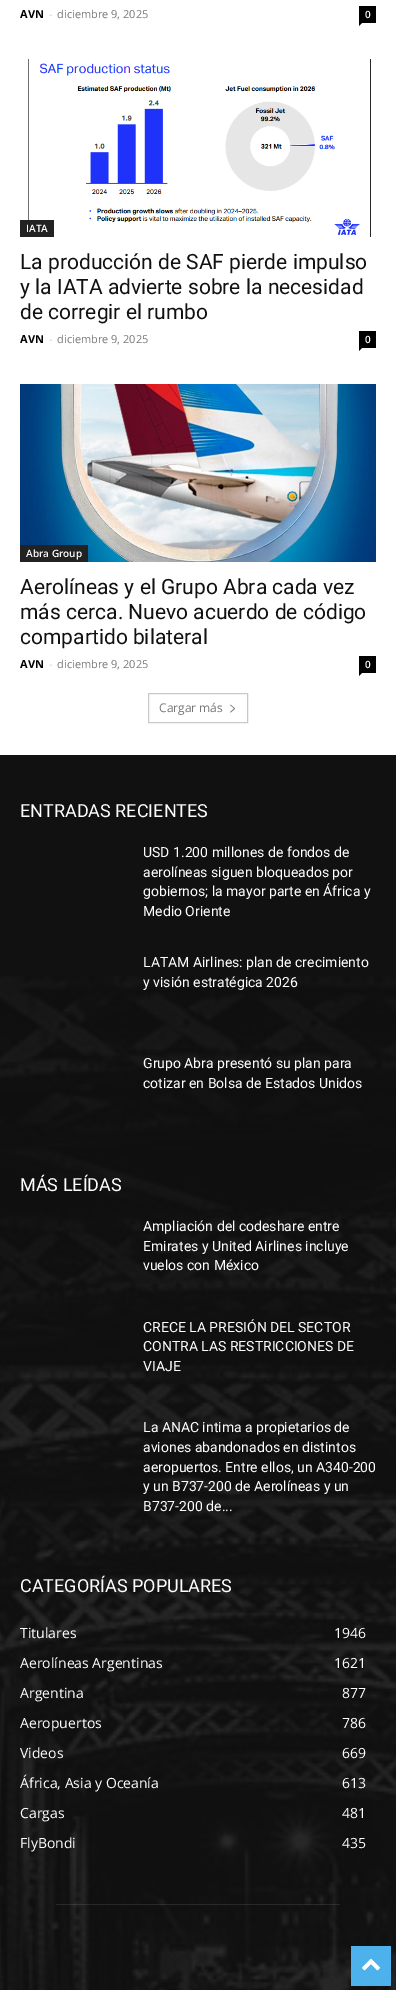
%!PS-Adobe-3.0
%%BoundingBox: 0 0 396 1990
%%LanguageLevel: 3
%%Pages: 1
%%EndComments
%%BeginProlog
/setink { 3 { 255 div 3 1 roll } repeat setrgbcolor } def
/usefont { [ exch dup neg 0 0 3 -1 roll 0 0 ] selectfont } def
/drawtext { setink usefont moveto show } def
/fillbox { setink rectfill } def
/setalpha { dup .setfillconstantalpha .setstrokeconstantalpha } def
/drawimage { 5 dict begin { /h /w /y /x /name } { exch def } forall
  gsave x y translate w h scale
  w h 8 [w 0 0 h 0 0] name (r) file false 3 colorimage grestore end } def
%%EndProlog
%%BeginSetup
<< /PageSize [396 1990] /PageUsesTransparency true >> setpagedevice
%%EndSetup
%%Page: 1 1
0 .pushpdf14devicefilter
0 1990 translate 1 -1 scale
4 setmiterlimit
0 0 396 1990 255 255 255 fillbox
(AVN) 20 18 /OpenSans-Bold 11 0 0 0 drawtext
(-) 49 18 /OpenSans-Regular 11 204 204 204 drawtext
(diciembre 9, 2025) 57 18 /OpenSans-Regular 11 118 118 118 drawtext
359 6 17 17 0 0 0 fillbox
(0) 365 18 /OpenSans-SemiBold 10 255 255 255 drawtext
0 0 0 setink
359 23 moveto 362 23 lineto 359 26 lineto closepath fill
(assets/img1.rgb) 28 59 343 178 drawimage
20 220 34 17 34 34 34 fillbox
(IATA) 26 232 /OpenSans-SemiBold 10 255 255 255 drawtext
(La producción de SAF pierde impulso) 20 269 /Roboto-Regular 21 17 17 17 drawtext
(y la IATA advierte sobre la necesidad) 20 294 /Roboto-Regular 21 17 17 17 drawtext
(de corregir el rumbo) 20 319 /Roboto-Regular 21 17 17 17 drawtext
(AVN) 20 343 /OpenSans-Bold 11 0 0 0 drawtext
(-) 49 343 /OpenSans-Regular 11 204 204 204 drawtext
(diciembre 9, 2025) 57 343 /OpenSans-Regular 11 118 118 118 drawtext
359 331 17 17 0 0 0 fillbox
(0) 365 343 /OpenSans-SemiBold 10 255 255 255 drawtext
0 0 0 setink
359 348 moveto 362 348 lineto 359 351 lineto closepath fill
(assets/img2.rgb) 20 384 356 178 drawimage
20 545 68 17 34 34 34 fillbox
(Abra Group) 26 557 /OpenSans-SemiBold 10 255 255 255 drawtext
(Aerolíneas y el Grupo Abra cada vez) 20 594 /Roboto-Regular 21 17 17 17 drawtext
(más cerca. Nuevo acuerdo de código) 20 619 /Roboto-Regular 21 17 17 17 drawtext
(compartido bilateral) 20 644 /Roboto-Regular 21 17 17 17 drawtext
(AVN) 20 668 /OpenSans-Bold 11 0 0 0 drawtext
(-) 49 668 /OpenSans-Regular 11 204 204 204 drawtext
(diciembre 9, 2025) 57 668 /OpenSans-Regular 11 118 118 118 drawtext
359 656 17 17 0 0 0 fillbox
(0) 365 668 /OpenSans-SemiBold 10 255 255 255 drawtext
0 0 0 setink
359 673 moveto 362 673 lineto 359 676 lineto closepath fill
201 201 201 setink
148.5 693.5 99 29 rectstroke
(Cargar más) 159 712 /OpenSans-Regular 12 118 118 118 drawtext
(assets/img3.rgb) 230 704 6 9 drawimage
0 755 396 1235 17 17 17 fillbox
(assets/img4.rgb) 0 976 396 1014 drawimage
(ENTRADAS RECIENTES) 20 817 /Roboto-Regular 18 255 255 255 drawtext
(USD 1.200 millones de fondos de) 143 857 /Roboto-Regular 14 255 255 255 drawtext
(aerolíneas siguen bloqueados por) 143 877 /Roboto-Regular 14 255 255 255 drawtext
(gobiernos; la mayor parte en África y) 143 896 /Roboto-Regular 14 255 255 255 drawtext
(Medio Oriente) 143 916 /Roboto-Regular 14 255 255 255 drawtext
(LATAM Airlines: plan de crecimiento) 143 967 /Roboto-Regular 14 255 255 255 drawtext
(y visión estratégica 2026) 143 987 /Roboto-Regular 14 255 255 255 drawtext
(Grupo Abra presentó su plan para) 143 1068 /Roboto-Regular 14 255 255 255 drawtext
(cotizar en Bolsa de Estados Unidos) 143 1088 /Roboto-Regular 14 255 255 255 drawtext
(MÁS LEÍDAS) 20 1191 /Roboto-Regular 18 255 255 255 drawtext
(Ampliación del codeshare entre) 143 1231 /Roboto-Regular 14 255 255 255 drawtext
(Emirates y United Airlines incluye) 143 1251 /Roboto-Regular 14 255 255 255 drawtext
(vuelos con México) 143 1270 /Roboto-Regular 14 255 255 255 drawtext
(CRECE LA PRESIÓN DEL SECTOR) 143 1332 /Roboto-Regular 14 255 255 255 drawtext
(CONTRA LAS RESTRICCIONES DE) 143 1351 /Roboto-Regular 14 255 255 255 drawtext
(VIAJE) 143 1371 /Roboto-Regular 14 255 255 255 drawtext
(La ANAC intima a propietarios de) 143 1432 /Roboto-Regular 14 255 255 255 drawtext
(aviones abandonados en distintos) 143 1452 /Roboto-Regular 14 255 255 255 drawtext
(aeropuertos. Entre ellos, un A340-200) 143 1472 /Roboto-Regular 14 255 255 255 drawtext
(y un B737-200 de Aerolíneas y un) 143 1491 /Roboto-Regular 14 255 255 255 drawtext
(B737-200 de...) 143 1511 /Roboto-Regular 14 255 255 255 drawtext
(CATEGORÍAS POPULARES) 20 1592 /Roboto-Regular 18 255 255 255 drawtext
(Titulares) 20 1638 /OpenSans-Regular 14 255 255 255 drawtext
(1946) 334 1638 /OpenSans-Regular 14 255 255 255 drawtext
(Aerolíneas Argentinas) 20 1668 /OpenSans-Regular 14 255 255 255 drawtext
(1621) 334 1668 /OpenSans-Regular 14 255 255 255 drawtext
(Argentina) 20 1698 /OpenSans-Regular 14 255 255 255 drawtext
(877) 342 1698 /OpenSans-Regular 14 255 255 255 drawtext
(Aeropuertos) 20 1728 /OpenSans-Regular 14 255 255 255 drawtext
(786) 342 1728 /OpenSans-Regular 14 255 255 255 drawtext
(Videos) 20 1758 /OpenSans-Regular 14 255 255 255 drawtext
(669) 342 1758 /OpenSans-Regular 14 255 255 255 drawtext
(África, Asia y Oceanía) 20 1788 /OpenSans-Regular 14 255 255 255 drawtext
(613) 342 1788 /OpenSans-Regular 14 255 255 255 drawtext
(Cargas) 20 1818 /OpenSans-Regular 14 255 255 255 drawtext
(481) 342 1818 /OpenSans-Regular 14 255 255 255 drawtext
(FlyBondi) 20 1848 /OpenSans-Regular 14 255 255 255 drawtext
(435) 342 1848 /OpenSans-Regular 14 255 255 255 drawtext
0.1 setalpha
56 1904 284 1 255 255 255 fillbox
1 setalpha
351 1946 40 40 77 178 236 fillbox
(assets/img5.rgb) 362 1958 18 13 drawimage
.poppdf14devicefilter showpage
%%EOF
